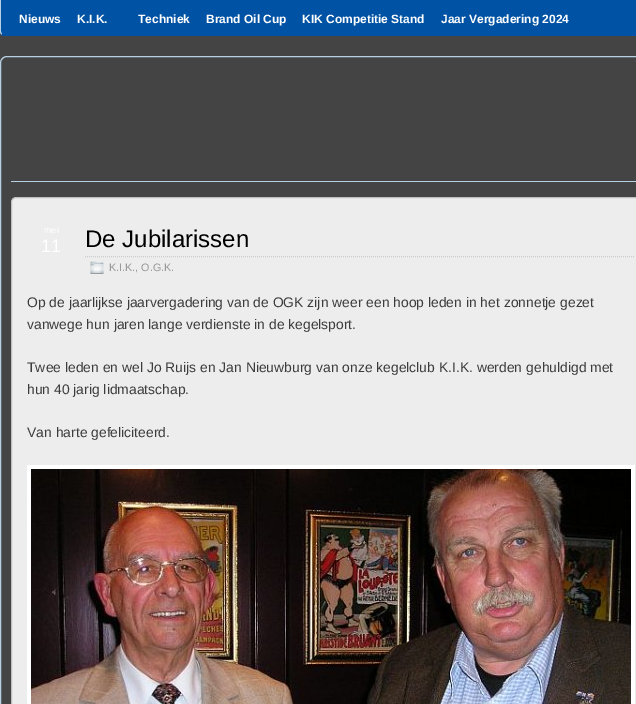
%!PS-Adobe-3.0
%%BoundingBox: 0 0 636 704
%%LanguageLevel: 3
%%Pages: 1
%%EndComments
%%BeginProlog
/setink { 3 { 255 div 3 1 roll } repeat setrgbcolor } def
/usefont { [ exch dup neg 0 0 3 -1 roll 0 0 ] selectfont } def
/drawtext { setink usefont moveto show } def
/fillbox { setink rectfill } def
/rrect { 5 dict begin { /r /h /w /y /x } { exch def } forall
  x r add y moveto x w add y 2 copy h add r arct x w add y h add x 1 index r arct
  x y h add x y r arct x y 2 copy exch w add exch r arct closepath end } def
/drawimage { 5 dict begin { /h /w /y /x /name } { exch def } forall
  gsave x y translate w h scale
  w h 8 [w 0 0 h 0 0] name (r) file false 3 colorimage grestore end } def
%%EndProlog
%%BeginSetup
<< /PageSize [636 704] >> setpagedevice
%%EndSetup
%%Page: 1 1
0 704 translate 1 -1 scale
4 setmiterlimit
0 0 636 704 68 68 68 fillbox
0 82 164 setink
0 0 moveto 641 0 lineto 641 31 lineto 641 34 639 36 636 36 curveto 5 36 lineto 2 36 0 34 0 31 curveto closepath fill
5 36 moveto 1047 36 lineto 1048 36 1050 36 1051 35 curveto 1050 34 lineto 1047 35 lineto 5 35 lineto 2 34 lineto 1 35 lineto 2 36 4 36 5 36 curveto closepath fill
182 209 228 setink
0 0 moveto 1 0 lineto 1 31 lineto 1 32 1.5 33 2 34 curveto 1.5 34.5 lineto 0.5 34 0 32.5 0 31 curveto closepath fill
(Nieuws) 19 23 /LiberationSans-Bold 12 255 255 255 drawtext
(K.I.K.) 77 23 /LiberationSans-Bold 12 255 255 255 drawtext
(Techniek) 138 23 /LiberationSans-Bold 12 255 255 255 drawtext
(Brand Oil Cup) 206 23 /LiberationSans-Bold 12 255 255 255 drawtext
(KIK Competitie Stand) 302 23 /LiberationSans-Bold 12 255 255 255 drawtext
(Jaar Vergadering 2024) 441 23 /LiberationSans-Bold 12 255 255 255 drawtext
182 209 228 setink
0.5 56.5 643 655 6.5 rrect stroke
11 181 625 1 182 209 228 fillbox
237 237 237 setink
11.5 197.5 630 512 4.5 rrect gsave fill grestore
192 192 192 setink
stroke
(mei) 44 233 /LiberationSans-Regular 9 255 255 255 drawtext
(11) 41 252 /LiberationSans-Regular 18 255 255 255 drawtext
204 204 204 setink
[1 1] 0 setdash
85 256.5 moveto 635 256.5 lineto stroke
(De Jubilarissen) 85 247 /LiberationSans-Regular 24 0 0 0 drawtext
(assets/img1.rgb) 90 261 14 13 drawimage
(K.I.K., O.G.K.) 109 271 /LiberationSans-Regular 10.75 153 153 153 drawtext
(Op de jaarlijkse jaarvergadering van de OGK zijn weer een hoop leden in het zonnetje gezet) 27 307 /LiberationSans-Regular 13.9 60 60 60 drawtext
(vanwege hun jaren lange verdienste in de kegelsport.) 27 329 /LiberationSans-Regular 13.9 60 60 60 drawtext
(Twee leden en wel Jo Ruijs en Jan Nieuwburg van onze kegelclub K.I.K. werden gehuldigd met) 27 372 /LiberationSans-Regular 13.9 60 60 60 drawtext
(hun 40 jarig lidmaatschap.) 27 394 /LiberationSans-Regular 13.9 60 60 60 drawtext
(Van harte gefeliciteerd.) 27 437 /LiberationSans-Regular 13.9 60 60 60 drawtext
27 465 608 239 255 255 255 fillbox
(assets/img2.rgb) 31 469 600 235 drawimage
showpage
%%EOF
